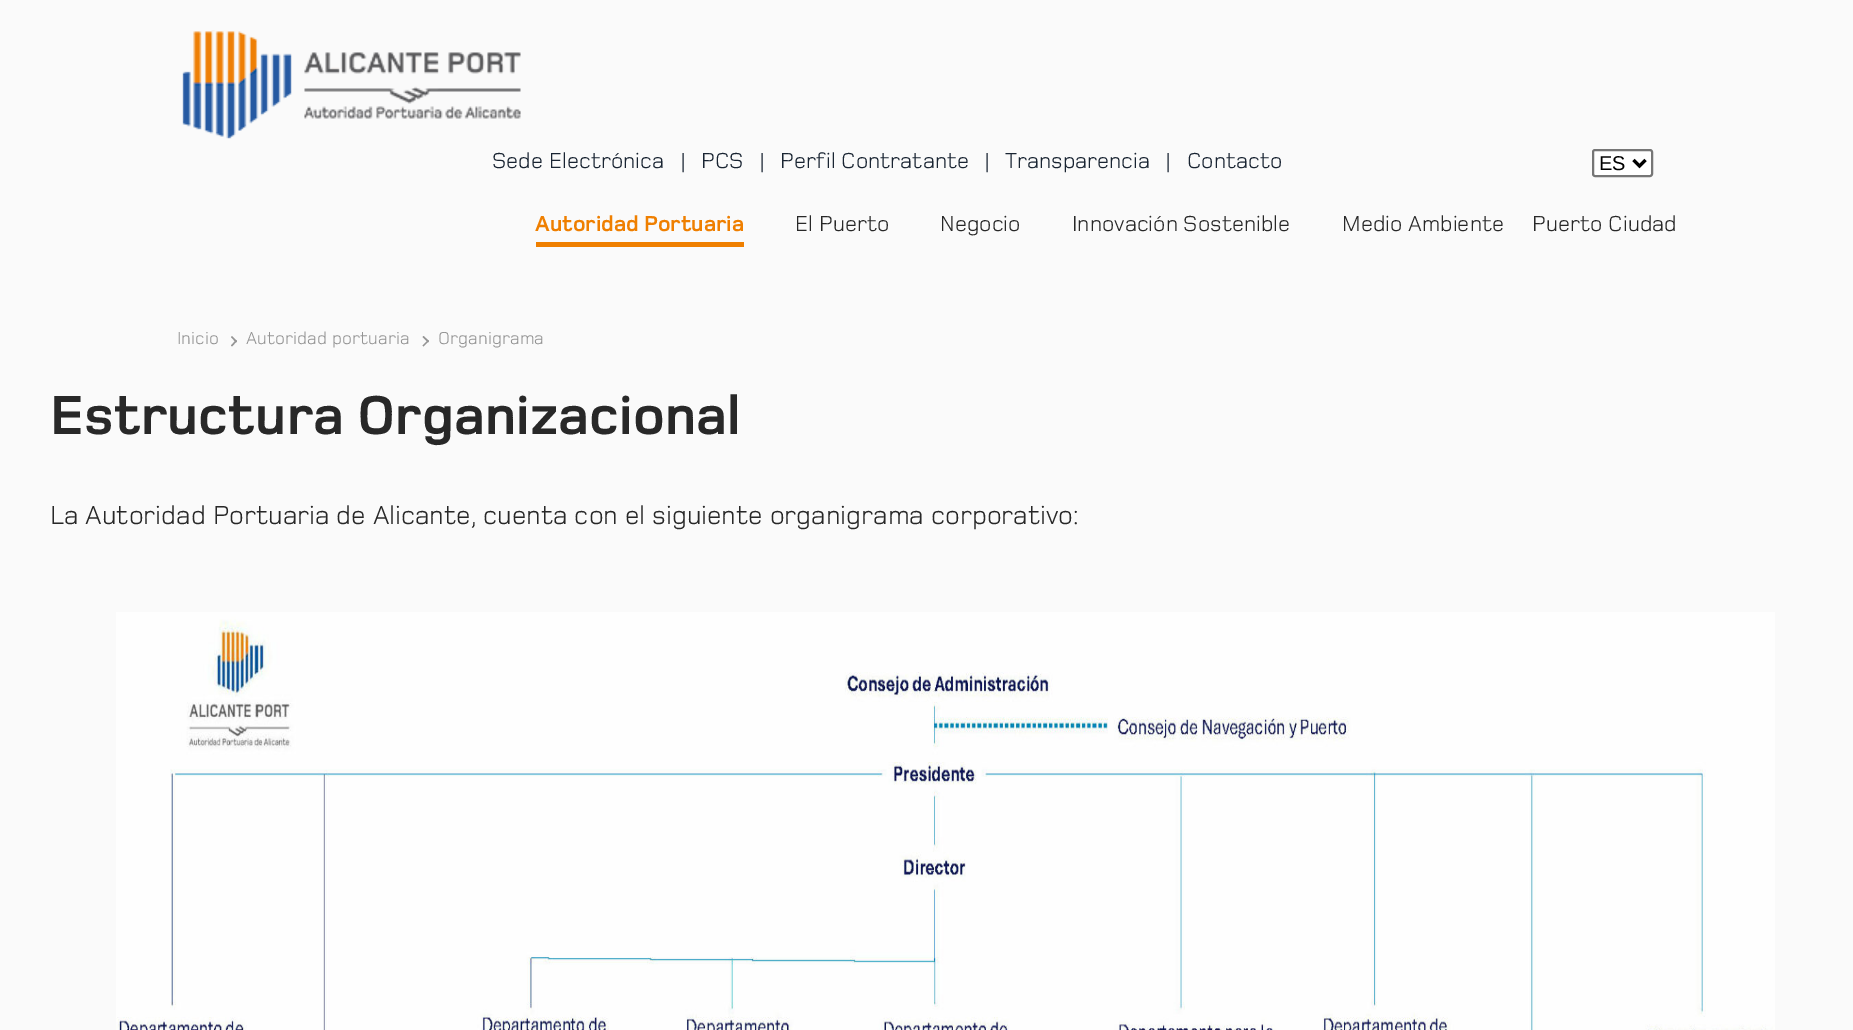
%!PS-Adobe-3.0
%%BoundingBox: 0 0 1853 1030
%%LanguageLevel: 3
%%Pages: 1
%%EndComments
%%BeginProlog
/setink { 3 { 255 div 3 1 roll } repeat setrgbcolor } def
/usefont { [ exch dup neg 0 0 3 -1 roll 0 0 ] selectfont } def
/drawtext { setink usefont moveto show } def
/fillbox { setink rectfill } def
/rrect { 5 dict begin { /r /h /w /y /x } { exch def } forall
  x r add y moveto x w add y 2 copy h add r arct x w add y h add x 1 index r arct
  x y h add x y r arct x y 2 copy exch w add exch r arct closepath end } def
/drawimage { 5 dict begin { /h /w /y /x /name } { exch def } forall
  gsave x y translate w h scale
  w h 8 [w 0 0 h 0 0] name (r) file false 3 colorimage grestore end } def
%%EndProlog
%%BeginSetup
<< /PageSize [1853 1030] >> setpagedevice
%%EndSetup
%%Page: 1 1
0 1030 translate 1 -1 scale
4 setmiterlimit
0 0 1853 1030 250 250 250 fillbox
(assets/img1.rgb) 182 30 339 109 drawimage
(Sede Electrónica) 492 168 /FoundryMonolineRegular-Regular 22.5 25 36 50 drawtext
(|) 680 168 /FoundryMonolineRegular-Regular 22.5 25 36 50 drawtext
(PCS) 701 168 /FoundryMonolineRegular-Regular 22.5 25 36 50 drawtext
(|) 759 168 /FoundryMonolineRegular-Regular 22.5 25 36 50 drawtext
(Perfil Contratante) 780 168 /FoundryMonolineRegular-Regular 22.5 25 36 50 drawtext
(|) 984 168 /FoundryMonolineRegular-Regular 22.5 25 36 50 drawtext
(Transparencia) 1005 168 /FoundryMonolineRegular-Regular 22.5 25 36 50 drawtext
(|) 1165 168 /FoundryMonolineRegular-Regular 22.5 25 36 50 drawtext
(Contacto) 1187 168 /FoundryMonolineRegular-Regular 22.5 25 36 50 drawtext
255 255 255 setink
1593 150 59 26 2 rrect gsave fill grestore
118 118 118 setink
2 setlinewidth
stroke
0 0 0 setink
3 setlinewidth
1633.5 160 moveto 1639.5 166 lineto 1645.5 160 lineto stroke
(ES) 1599 170 /LiberationSans-Regular 20 0 0 0 drawtext
(Autoridad Portuaria) 535 231 /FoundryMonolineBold-Bold 22.5 239 127 0 drawtext
536 242 208 5 239 127 0 fillbox
(El Puerto) 795 231 /FoundryMonolineRegular-Regular 22.5 40 40 40 drawtext
(Negocio) 940 231 /FoundryMonolineRegular-Regular 22.5 40 40 40 drawtext
(Innovación Sostenible) 1072 231 /FoundryMonolineRegular-Regular 22.5 40 40 40 drawtext
(Medio Ambiente) 1342 231 /FoundryMonolineRegular-Regular 22.5 40 40 40 drawtext
(Puerto Ciudad) 1532 231 /FoundryMonolineRegular-Regular 22.5 40 40 40 drawtext
/FoundryMonolineRegular-Regular 18 usefont
148 148 148 setink
177 344 moveto 0.1 0 (Inicio) ashow
231 337 moveto 232 336 lineto 237 341 lineto 236 342.5 lineto closepath fill
231 345.5 moveto 236 340 lineto 237 341 lineto 232 346.5 lineto closepath fill
246 344 moveto 0.1 0 (Autoridad portuaria) ashow
422.5 337 moveto 423.5 336 lineto 429 341 lineto 428 342.5 lineto closepath fill
422.5 345.5 moveto 428 340 lineto 429 341 lineto 423.5 346.5 lineto closepath fill
438 344 moveto 0.1 0 (Organigrama) ashow
(Estructura Organizacional) 50 434 /FoundryMonolineBold-Bold 57 40 40 40 drawtext
(La Autoridad Portuaria de Alicante, cuenta con el siguiente organigrama corporativo:) 50 524 /FoundryMonolineRegular-Regular 27 40 40 40 drawtext
(assets/img2.rgb) 116 612 1659 418 drawimage
showpage
%%EOF
